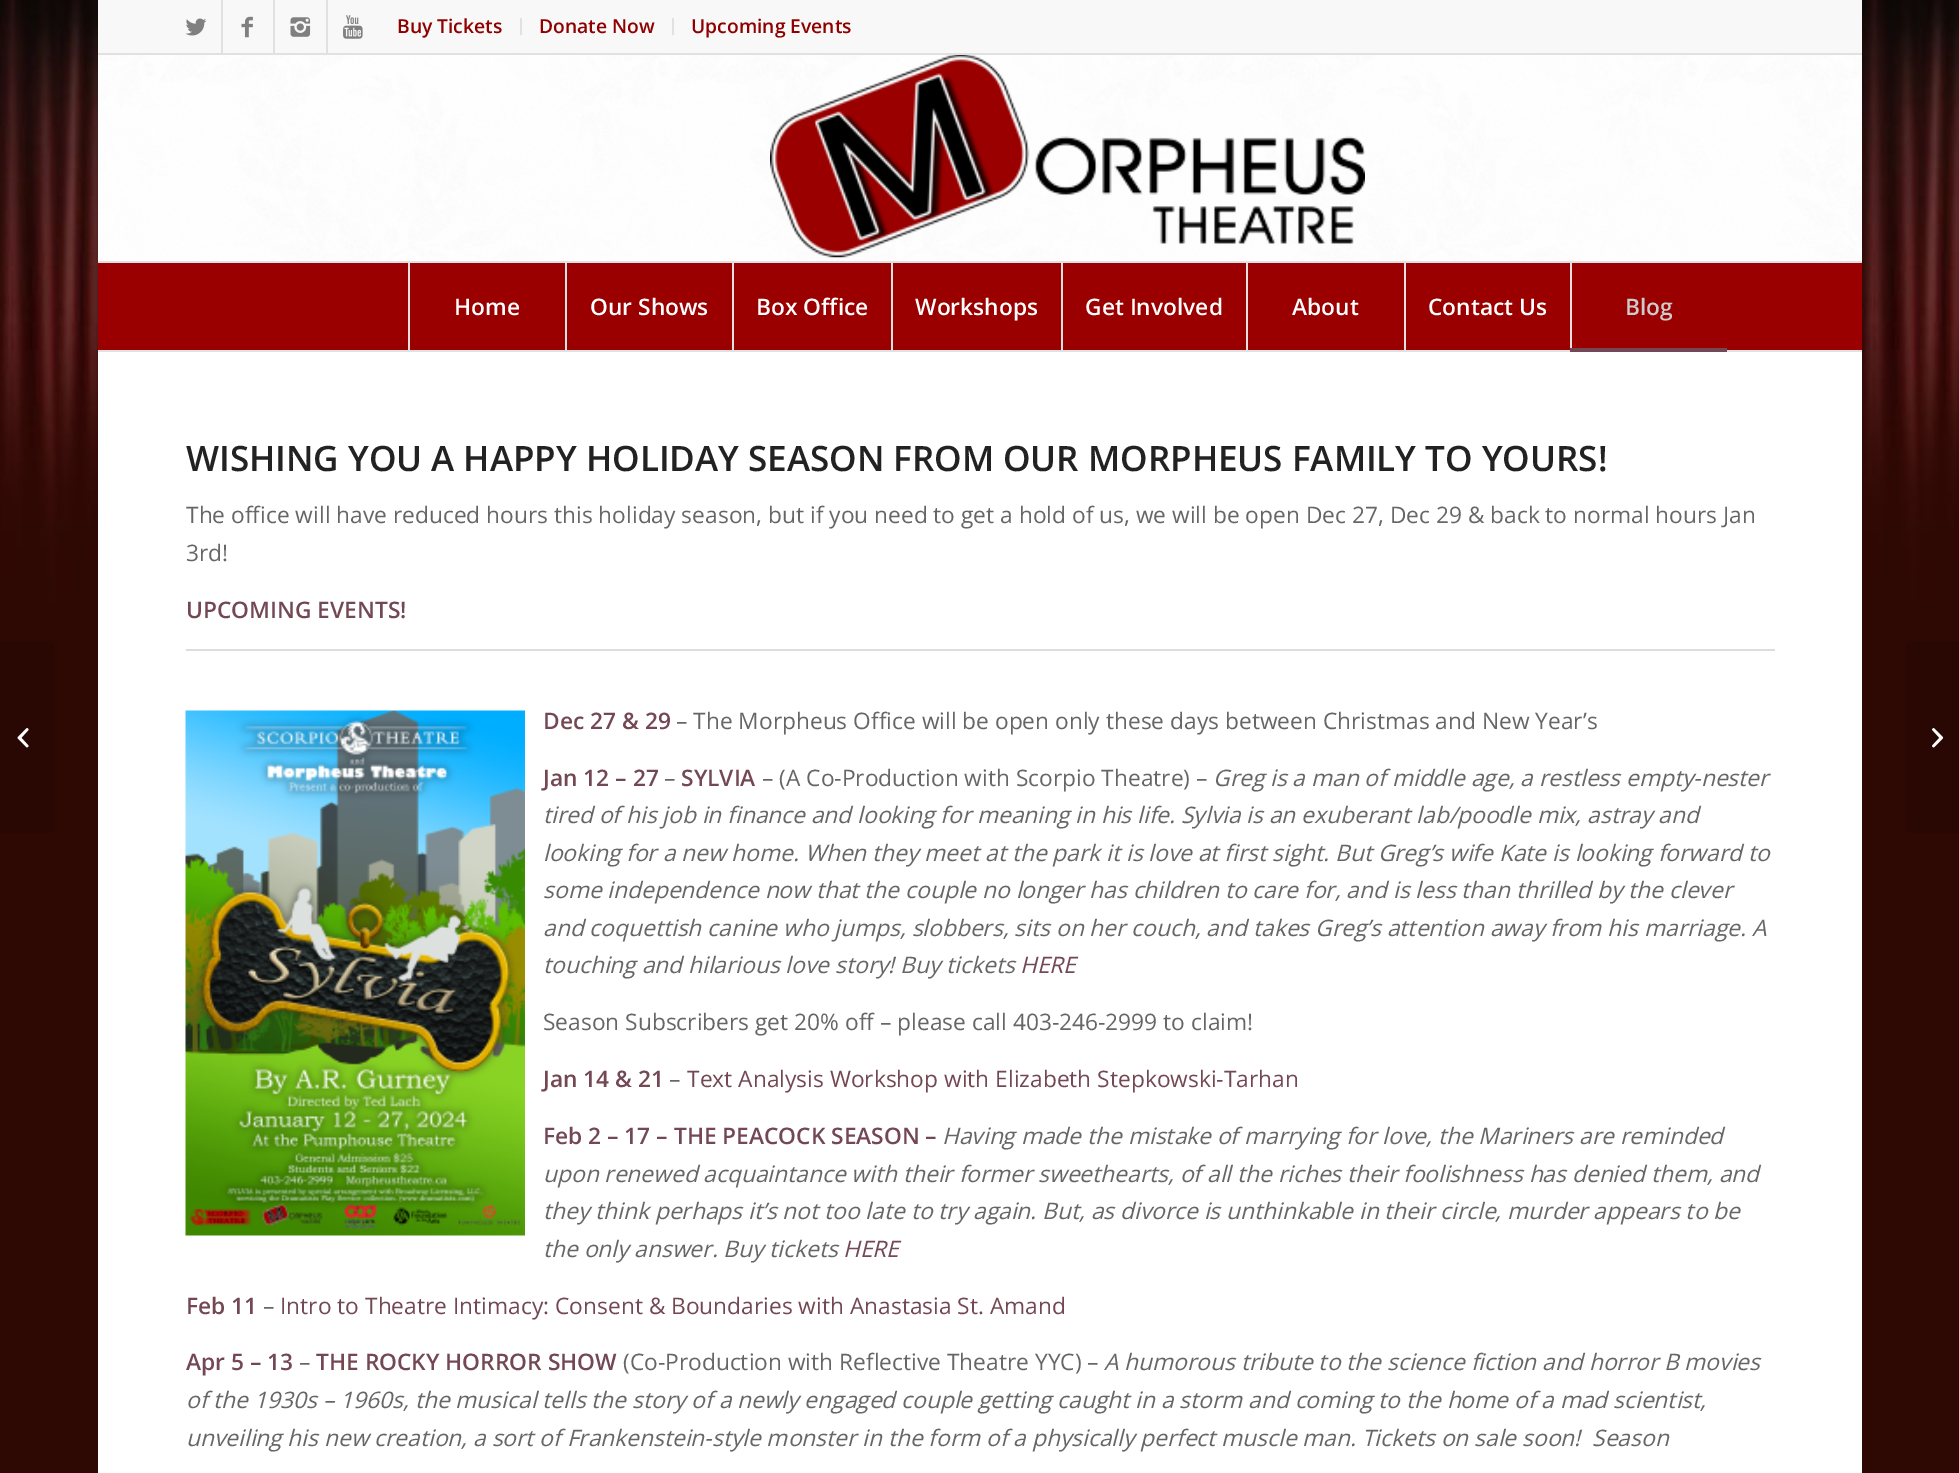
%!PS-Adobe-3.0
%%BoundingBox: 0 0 1959 1473
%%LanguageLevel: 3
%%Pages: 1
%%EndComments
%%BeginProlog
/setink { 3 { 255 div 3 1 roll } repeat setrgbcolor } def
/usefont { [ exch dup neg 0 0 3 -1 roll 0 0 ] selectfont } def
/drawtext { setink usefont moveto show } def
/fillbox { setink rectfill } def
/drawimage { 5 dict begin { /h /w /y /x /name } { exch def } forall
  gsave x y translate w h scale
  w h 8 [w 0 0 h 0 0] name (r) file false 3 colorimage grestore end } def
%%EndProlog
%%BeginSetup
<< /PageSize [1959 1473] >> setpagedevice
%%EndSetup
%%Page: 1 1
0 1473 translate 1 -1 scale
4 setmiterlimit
0 0 1959 1473 255 255 255 fillbox
(assets/img1.rgb) 0 0 1959 1473 drawimage
98 0 1764 53 248 248 248 fillbox
98 53 1764 2 225 225 225 fillbox
221 0 2 53 225 225 225 fillbox
(assets/img2.rgb) 185 18 22 18 drawimage
273 0 2 53 225 225 225 fillbox
(assets/img3.rgb) 241 16 12 22 drawimage
326 0 2 53 225 225 225 fillbox
(assets/img4.rgb) 290 17 21 20 drawimage
(assets/img5.rgb) 343 15 20 24 drawimage
520 18 2 17 225 225 225 fillbox
(Buy Tickets) 397 33 /OpenSans-SemiBold 19.25 143 0 0 drawtext
672 18 2 17 225 225 225 fillbox
(Donate Now) 539 33 /OpenSans-SemiBold 19.25 143 0 0 drawtext
(Upcoming Events) 691 33 /OpenSans-SemiBold 19.25 143 0 0 drawtext
98 55 1764 206 255 255 255 fillbox
(assets/img6.rgb) 98 55 1764 206 drawimage
98 350 1764 2 225 225 225 fillbox
(assets/img7.rgb) 770 55 595 203 drawimage
98 263 1764 87 154 0 0 fillbox
98 261 1764 2 225 225 225 fillbox
408 263 2 87 225 225 225 fillbox
(Home) 454 315 /OpenSans-SemiBold 22.75 255 255 255 drawtext
565 263 2 87 225 225 225 fillbox
(Our Shows) 590 315 /OpenSans-SemiBold 22.75 255 255 255 drawtext
732 263 2 87 225 225 225 fillbox
(Box Office) 756 315 /OpenSans-SemiBold 22.75 255 255 255 drawtext
891 263 2 87 225 225 225 fillbox
(Workshops) 915 315 /OpenSans-SemiBold 22.75 255 255 255 drawtext
1061 263 2 87 225 225 225 fillbox
(Get Involved) 1085 315 /OpenSans-SemiBold 22.75 255 255 255 drawtext
1246 263 2 87 225 225 225 fillbox
(About) 1292 315 /OpenSans-SemiBold 22.75 255 255 255 drawtext
1404 263 2 87 225 225 225 fillbox
(Contact Us) 1428 315 /OpenSans-SemiBold 22.75 255 255 255 drawtext
1570 263 2 87 225 225 225 fillbox
(Blog) 1625 315 /OpenSans-SemiBold 22.75 204 204 204 drawtext
1570 348 157 4 115 72 84 fillbox
41 8 3 setink
0 641 moveto 47 641 lineto 51 641 54 644 54 648 curveto 54 826 lineto 54 830 51 833 47 833 curveto 0 833 lineto closepath fill
(assets/img8.rgb) 17 728 12 20 drawimage
98 352 1764 1121 255 255 255 fillbox
(WISHING YOU A HAPPY HOLIDAY SEASON FROM OUR MORPHEUS FAMILY TO YOURS!) 186 471 /OpenSans-SemiBold 35 34 34 34 drawtext
(The office will have reduced hours this holiday season, but if you need to get a hold of us, we will be open Dec 27, Dec 29 & back to normal hours Jan) 186 523 /OpenSans-Regular 22.75 102 102 102 drawtext
(3rd!) 186 561 /OpenSans-Regular 22.75 102 102 102 drawtext
(UPCOMING EVENTS!) 186 618 /OpenSans-SemiBold 22.75 115 72 84 drawtext
186 649 1589 2 221 221 221 fillbox
(assets/img9.rgb) 185 710 340 526 drawimage
(Dec 27 & 29) 543 729 /OpenSans-SemiBold 22.75 115 72 84 drawtext
(– The Morpheus Office will be open only these days between Christmas and New Year’s) 676 729 /OpenSans-Regular 22.75 102 102 102 drawtext
(Jan 12 – 27) 543 786 /OpenSans-SemiBold 22.75 115 72 84 drawtext
(–) 664 786 /OpenSans-Regular 22.75 102 102 102 drawtext
(SYLVIA) 681 786 /OpenSans-SemiBold 22.75 115 72 84 drawtext
(– \(A Co-Production with Scorpio Theatre\) –) 762 786 /OpenSans-Regular 22.75 102 102 102 drawtext
(Greg is a man of middle age, a restless empty-nester) 1213 786 /OpenSans-Italic 22.75 102 102 102 drawtext
(tired of his job in finance and looking for meaning in his life. Sylvia is an exuberant lab/poodle mix, astray and) 543 823 /OpenSans-Italic 22.75 102 102 102 drawtext
(looking for a new home. When they meet at the park it is love at first sight. But Greg’s wife Kate is looking forward to) 543 861 /OpenSans-Italic 22.75 102 102 102 drawtext
(some independence now that the couple no longer has children to care for, and is less than thrilled by the clever) 543 898 /OpenSans-Italic 22.75 102 102 102 drawtext
(and coquettish canine who jumps, slobbers, sits on her couch, and takes Greg’s attention away from his marriage. A) 543 936 /OpenSans-Italic 22.75 102 102 102 drawtext
(touching and hilarious love story! Buy tickets) 543 973 /OpenSans-Italic 22.75 102 102 102 drawtext
(HERE) 1020 973 /OpenSans-Italic 22.75 115 72 84 drawtext
(Season Subscribers get 20% off – please call 403-246-2999 to claim!) 543 1030 /OpenSans-Regular 22.75 102 102 102 drawtext
(Jan 14 & 21) 543 1087 /OpenSans-SemiBold 22.75 115 72 84 drawtext
(–) 669 1087 /OpenSans-Regular 22.75 102 102 102 drawtext
(Text Analysis Workshop with Elizabeth Stepkowski-Tarhan) 687 1087 /OpenSans-Regular 22.75 115 72 84 drawtext
(Feb 2 – 17 – THE PEACOCK SEASON –) 543 1144 /OpenSans-SemiBold 22.75 115 72 84 drawtext
(Having made the mistake of marrying for love, the Mariners are reminded) 942 1144 /OpenSans-Italic 22.75 102 102 102 drawtext
(upon renewed acquaintance with their former sweethearts, of all the riches their foolishness has denied them, and) 543 1182 /OpenSans-Italic 22.75 102 102 102 drawtext
(they think perhaps it’s not too late to try again. But, as divorce is unthinkable in their circle, murder appears to be) 543 1219 /OpenSans-Italic 22.75 102 102 102 drawtext
(the only answer. Buy tickets) 543 1257 /OpenSans-Italic 22.75 102 102 102 drawtext
(HERE) 843 1257 /OpenSans-Italic 22.75 115 72 84 drawtext
(Feb 11) 186 1314 /OpenSans-SemiBold 22.75 115 72 84 drawtext
(–) 263 1314 /OpenSans-Regular 22.75 102 102 102 drawtext
(Intro to Theatre Intimacy: Consent & Boundaries with Anastasia St. Amand) 280 1314 /OpenSans-Regular 22.75 115 72 84 drawtext
(Apr 5 – 13) 186 1370 /OpenSans-SemiBold 22.75 115 72 84 drawtext
(–) 299 1370 /OpenSans-Regular 22.75 102 102 102 drawtext
(THE ROCKY HORROR SHOW) 316 1370 /OpenSans-SemiBold 22.75 115 72 84 drawtext
(\(Co-Production with Reflective Theatre YYC\) –) 623 1370 /OpenSans-Regular 22.75 102 102 102 drawtext
(A humorous tribute to the science fiction and horror B movies) 1104 1370 /OpenSans-Italic 22.75 102 102 102 drawtext
(of the 1930s – 1960s, the musical tells the story of a newly engaged couple getting caught in a storm and coming to the home of a mad scientist,) 186 1408 /OpenSans-Italic 22.75 102 102 102 drawtext
(unveiling his new creation, a sort of Frankenstein-style monster in the form of a physically perfect muscle man. Tickets on sale soon!  Season) 186 1446 /OpenSans-Italic 22.75 102 102 102 drawtext
41 8 3 setink
1913 641 moveto 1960 641 lineto 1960 833 lineto 1913 833 lineto 1909 833 1906 830 1906 826 curveto 1906 648 lineto 1906 644 1909 641 1913 641 curveto closepath fill
(assets/img10.rgb) 1932 728 12 20 drawimage
showpage
%%EOF
